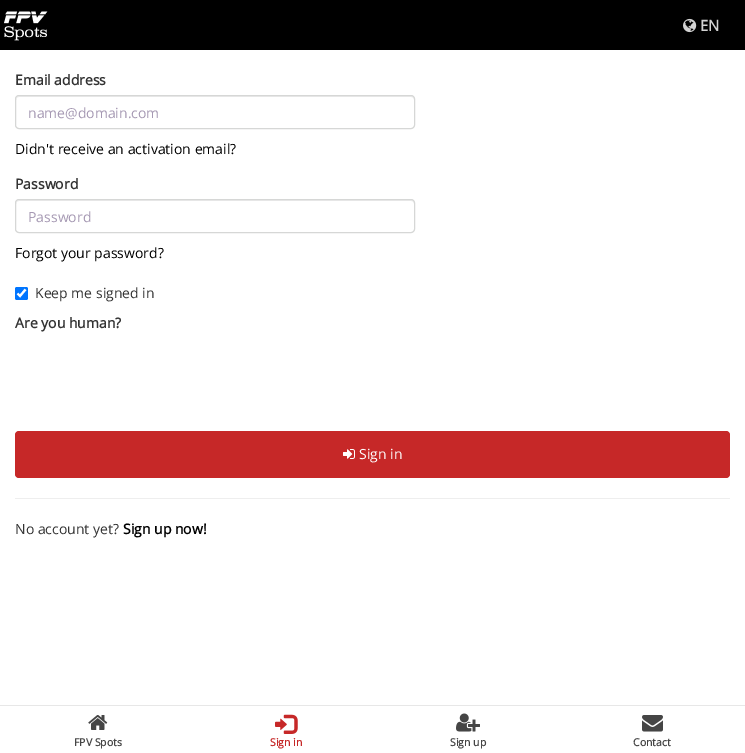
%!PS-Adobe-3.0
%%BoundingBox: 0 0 745 753
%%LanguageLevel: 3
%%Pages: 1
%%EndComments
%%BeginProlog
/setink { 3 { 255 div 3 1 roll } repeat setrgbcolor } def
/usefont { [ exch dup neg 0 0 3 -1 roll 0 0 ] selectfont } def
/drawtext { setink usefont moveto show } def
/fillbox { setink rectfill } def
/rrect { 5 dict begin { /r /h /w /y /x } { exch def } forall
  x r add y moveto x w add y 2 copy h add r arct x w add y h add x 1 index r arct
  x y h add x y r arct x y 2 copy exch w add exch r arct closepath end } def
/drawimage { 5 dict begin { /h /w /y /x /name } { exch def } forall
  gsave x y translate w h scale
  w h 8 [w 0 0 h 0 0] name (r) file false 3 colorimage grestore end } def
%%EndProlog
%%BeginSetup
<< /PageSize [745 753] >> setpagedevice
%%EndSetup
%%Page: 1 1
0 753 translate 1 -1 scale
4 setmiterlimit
0 0 745 753 255 255 255 fillbox
0 0 745 50 0 0 0 fillbox
(assets/img1.rgb) 4 11 44 30 drawimage
(assets/img2.rgb) 683 18 14 15 drawimage
(EN) 700 31 /OpenSans-Bold 15 211 211 211 drawtext
(Email address) 15 85 /OpenSans-Bold 14 51 51 51 drawtext
236 236 236 setink
19 97 moveto 411 97 lineto 413 97 414 98 414 100 curveto 414 98 413 96 411 96 curveto 19 96 lineto 17 97 lineto 16 100 lineto 16 98 17 97 19 97 curveto closepath fill
214 215 214 setink
15.5 95.5 399 33 3.5 rrect stroke
(name@domain.com) 28 118 /OpenSans-Regular 14 166 153 179 drawtext
(Didn't receive an activation email?) 15 154 /OpenSans-Regular 14 0 0 0 drawtext
(Password) 15 189 /OpenSans-Bold 14 51 51 51 drawtext
236 236 236 setink
19 201 moveto 411 201 lineto 413 201 414 202 414 204 curveto 414 202 413 200 411 200 curveto 19 200 lineto 17 201 lineto 16 204 lineto 16 202 17 201 19 201 curveto closepath fill
214 215 214 setink
15.5 199.5 399 33 3.5 rrect stroke
(Password) 28 222 /OpenSans-Regular 14 166 153 179 drawtext
(Forgot your password?) 15 258 /OpenSans-Regular 14 0 0 0 drawtext
0 117 255 setink
15 287 13 13 2 rrect fill
255 255 255 setink
2.1 setlinewidth
17.5 293.5 moveto 20 296 lineto 25.5 289.5 lineto stroke
(Keep me signed in) 35 298 /OpenSans-Regular 14 51 51 51 drawtext
(Are you human?) 15 328 /OpenSans-Bold 14 51 51 51 drawtext
198 40 40 setink
15 431 715 47 4 rrect fill
(assets/img3.rgb) 343 449 12 10 drawimage
(Sign in) 359 459 /OpenSans-Regular 14 255 255 255 drawtext
15 498 715 1 238 238 238 fillbox
(No account yet?) 15 534 /OpenSans-Regular 14 51 51 51 drawtext
(Sign up now!) 123 534 /OpenSans-Bold 14 0 0 0 drawtext
0 705 745 1 231 231 231 fillbox
(assets/img4.rgb) 88 715 20 15 drawimage
(FPV Spots) 74 746 /OpenSans-Bold 10.5 69 69 69 drawtext
(assets/img5.rgb) 275 714 23 20 drawimage
(Sign in) 270 746 /OpenSans-Bold 10.5 198 40 40 drawtext
(assets/img6.rgb) 456 713 24 19 drawimage
(Sign up) 450 746 /OpenSans-Bold 10.5 69 69 69 drawtext
(assets/img7.rgb) 642 715 21 17 drawimage
(Contact) 633 746 /OpenSans-Bold 10.5 69 69 69 drawtext
showpage
%%EOF
